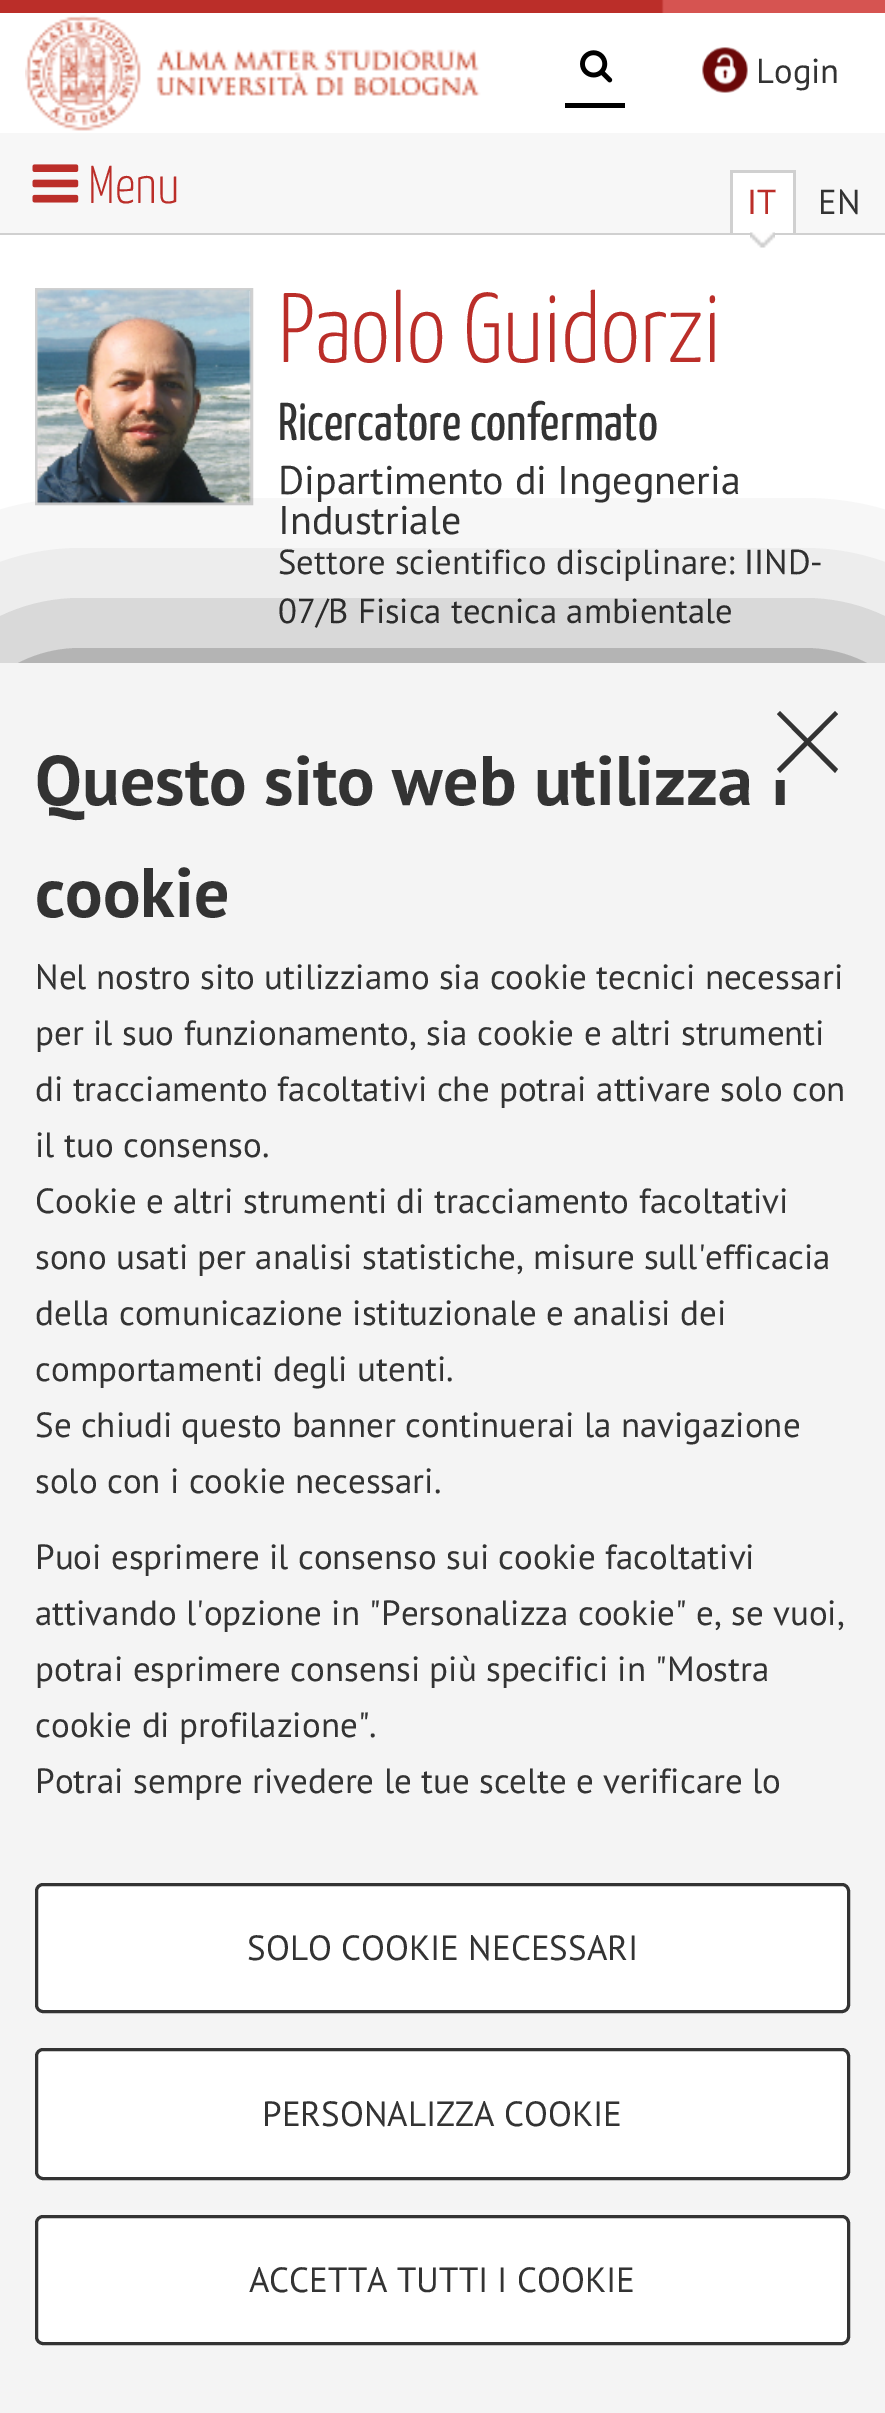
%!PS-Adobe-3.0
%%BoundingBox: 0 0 885 2413
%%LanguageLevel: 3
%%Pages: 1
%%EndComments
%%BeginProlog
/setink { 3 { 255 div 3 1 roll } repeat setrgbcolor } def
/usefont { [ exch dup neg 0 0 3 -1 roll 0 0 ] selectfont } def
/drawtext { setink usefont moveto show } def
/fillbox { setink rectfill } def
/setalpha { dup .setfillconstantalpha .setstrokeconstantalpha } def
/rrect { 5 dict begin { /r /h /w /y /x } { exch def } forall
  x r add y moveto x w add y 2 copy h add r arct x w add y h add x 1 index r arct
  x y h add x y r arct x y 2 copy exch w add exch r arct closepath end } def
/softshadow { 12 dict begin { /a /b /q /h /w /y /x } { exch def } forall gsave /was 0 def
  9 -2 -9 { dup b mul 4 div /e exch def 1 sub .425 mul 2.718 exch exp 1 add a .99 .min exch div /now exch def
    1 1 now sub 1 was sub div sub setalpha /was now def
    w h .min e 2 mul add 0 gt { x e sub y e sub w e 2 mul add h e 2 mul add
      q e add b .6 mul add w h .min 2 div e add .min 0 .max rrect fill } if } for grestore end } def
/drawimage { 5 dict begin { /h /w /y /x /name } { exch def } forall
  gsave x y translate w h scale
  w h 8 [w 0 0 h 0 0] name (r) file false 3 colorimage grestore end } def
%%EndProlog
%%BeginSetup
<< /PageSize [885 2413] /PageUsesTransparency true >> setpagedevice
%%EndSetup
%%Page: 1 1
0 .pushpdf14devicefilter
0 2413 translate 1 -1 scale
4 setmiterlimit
0 0 885 2413 255 255 255 fillbox
(assets/img1.rgb) 0 0 885 13 drawimage
(assets/img2.rgb) 25 15 456 116 drawimage
565 103 60 5 0 0 0 fillbox
(assets/img3.rgb) 580 50 33 33 drawimage
(assets/img4.rgb) 702 47 46 46 drawimage
(Login) 756 83 /PTSans-Regular 34.7 51 51 51 drawtext
0 133 885 100 247 247 247 fillbox
0 233 885 2 208 208 208 fillbox
(assets/img5.rgb) 32 164 47 39 drawimage
(Menu) 88 203 /YanoneKaffeesatz-Light 53.25 187 46 41 drawtext
733 173 60 60 255 255 255 fillbox
730 170 65 3 208 208 208 fillbox
793 170 3 63 208 208 208 fillbox
730 170 3 63 208 208 208 fillbox
(IT) 747 214 /PTSans-Regular 34.7 187 46 41 drawtext
(assets/img6.rgb) 750 232 25 16 drawimage
(EN) 818 214 /PTSans-Regular 34.7 51 51 51 drawtext
208 208 208 setink
3 setlinewidth
36.5 289.5 215 214 rectstroke
(assets/img7.rgb) 37 289 215 215 drawimage
(Paolo Guidorzi) 278 362 /YanoneKaffeesatz-Light 98.5 187 46 41 drawtext
(Ricercatore confermato) 278 440 /YanoneKaffeesatz-Regular 53.25 51 51 51 drawtext
(Dipartimento di Ingegneria) 278 494 /PTSans-Regular 40 51 51 51 drawtext
(Industriale) 278 534 /PTSans-Regular 40 51 51 51 drawtext
(Settore scientifico disciplinare: IIND-) 278 574 /PTSans-Regular 34.7 51 51 51 drawtext
(07/B Fisica tecnica ambientale) 278 623 /PTSans-Regular 34.7 51 51 51 drawtext
0 0 0 setink
20 723 845 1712 0 100 1 softshadow
0 663 885 1750 244 244 244 fillbox
(Questo sito web utilizza i) 35 805 /PTSans-Bold 70 51 51 51 drawtext
774 755 12 25 244 244 244 fillbox
51 51 51 setink
835 711 moveto 838 714 lineto 780 773 lineto 777 769 lineto closepath fill
777 714 moveto 780 711 lineto 838 769 lineto 835 773 lineto closepath fill
(cookie) 35 917 /PTSans-Bold 70 51 51 51 drawtext
(Nel nostro sito utilizziamo sia cookie tecnici necessari) 35 989 /PTSans-Regular 35 51 51 51 drawtext
(per il suo funzionamento, sia cookie e altri strumenti) 35 1045 /PTSans-Regular 35 51 51 51 drawtext
(di tracciamento facoltativi che potrai attivare solo con) 35 1101 /PTSans-Regular 35 51 51 51 drawtext
(il tuo consenso.) 35 1157 /PTSans-Regular 35 51 51 51 drawtext
(Cookie e altri strumenti di tracciamento facoltativi) 35 1213 /PTSans-Regular 35 51 51 51 drawtext
(sono usati per analisi statistiche, misure sull'efficacia) 35 1269 /PTSans-Regular 35 51 51 51 drawtext
(della comunicazione istituzionale e analisi dei) 35 1325 /PTSans-Regular 35 51 51 51 drawtext
(comportamenti degli utenti.) 35 1381 /PTSans-Regular 35 51 51 51 drawtext
(Se chiudi questo banner continuerai la navigazione) 35 1437 /PTSans-Regular 35 51 51 51 drawtext
(solo con i cookie necessari.) 35 1493 /PTSans-Regular 35 51 51 51 drawtext
(Puoi esprimere il consenso sui cookie facoltativi) 35 1569 /PTSans-Regular 35 51 51 51 drawtext
(attivando l'opzione in "Personalizza cookie" e, se vuoi,) 35 1625 /PTSans-Regular 35 51 51 51 drawtext
(potrai esprimere consensi più specifici in "Mostra) 35 1681 /PTSans-Regular 35 51 51 51 drawtext
(cookie di profilazione".) 35 1737 /PTSans-Regular 35 51 51 51 drawtext
(Potrai sempre rivedere le tue scelte e verificare lo) 35 1793 /PTSans-Regular 35 51 51 51 drawtext
255 255 255 setink
36.5 1884.5 812 127 6.5 rrect gsave fill grestore
51 51 51 setink
stroke
(SOLO COOKIE NECESSARI) 247 1960 /PTSans-Regular 35 51 51 51 drawtext
255 255 255 setink
36.5 2049.5 812 129 6.5 rrect gsave fill grestore
51 51 51 setink
stroke
(PERSONALIZZA COOKIE) 262 2126 /PTSans-Regular 35 51 51 51 drawtext
255 255 255 setink
36.5 2216.5 812 127 6.5 rrect gsave fill grestore
51 51 51 setink
stroke
(ACCETTA TUTTI I COOKIE) 249 2292 /PTSans-Regular 35 51 51 51 drawtext
.poppdf14devicefilter showpage
%%EOF
